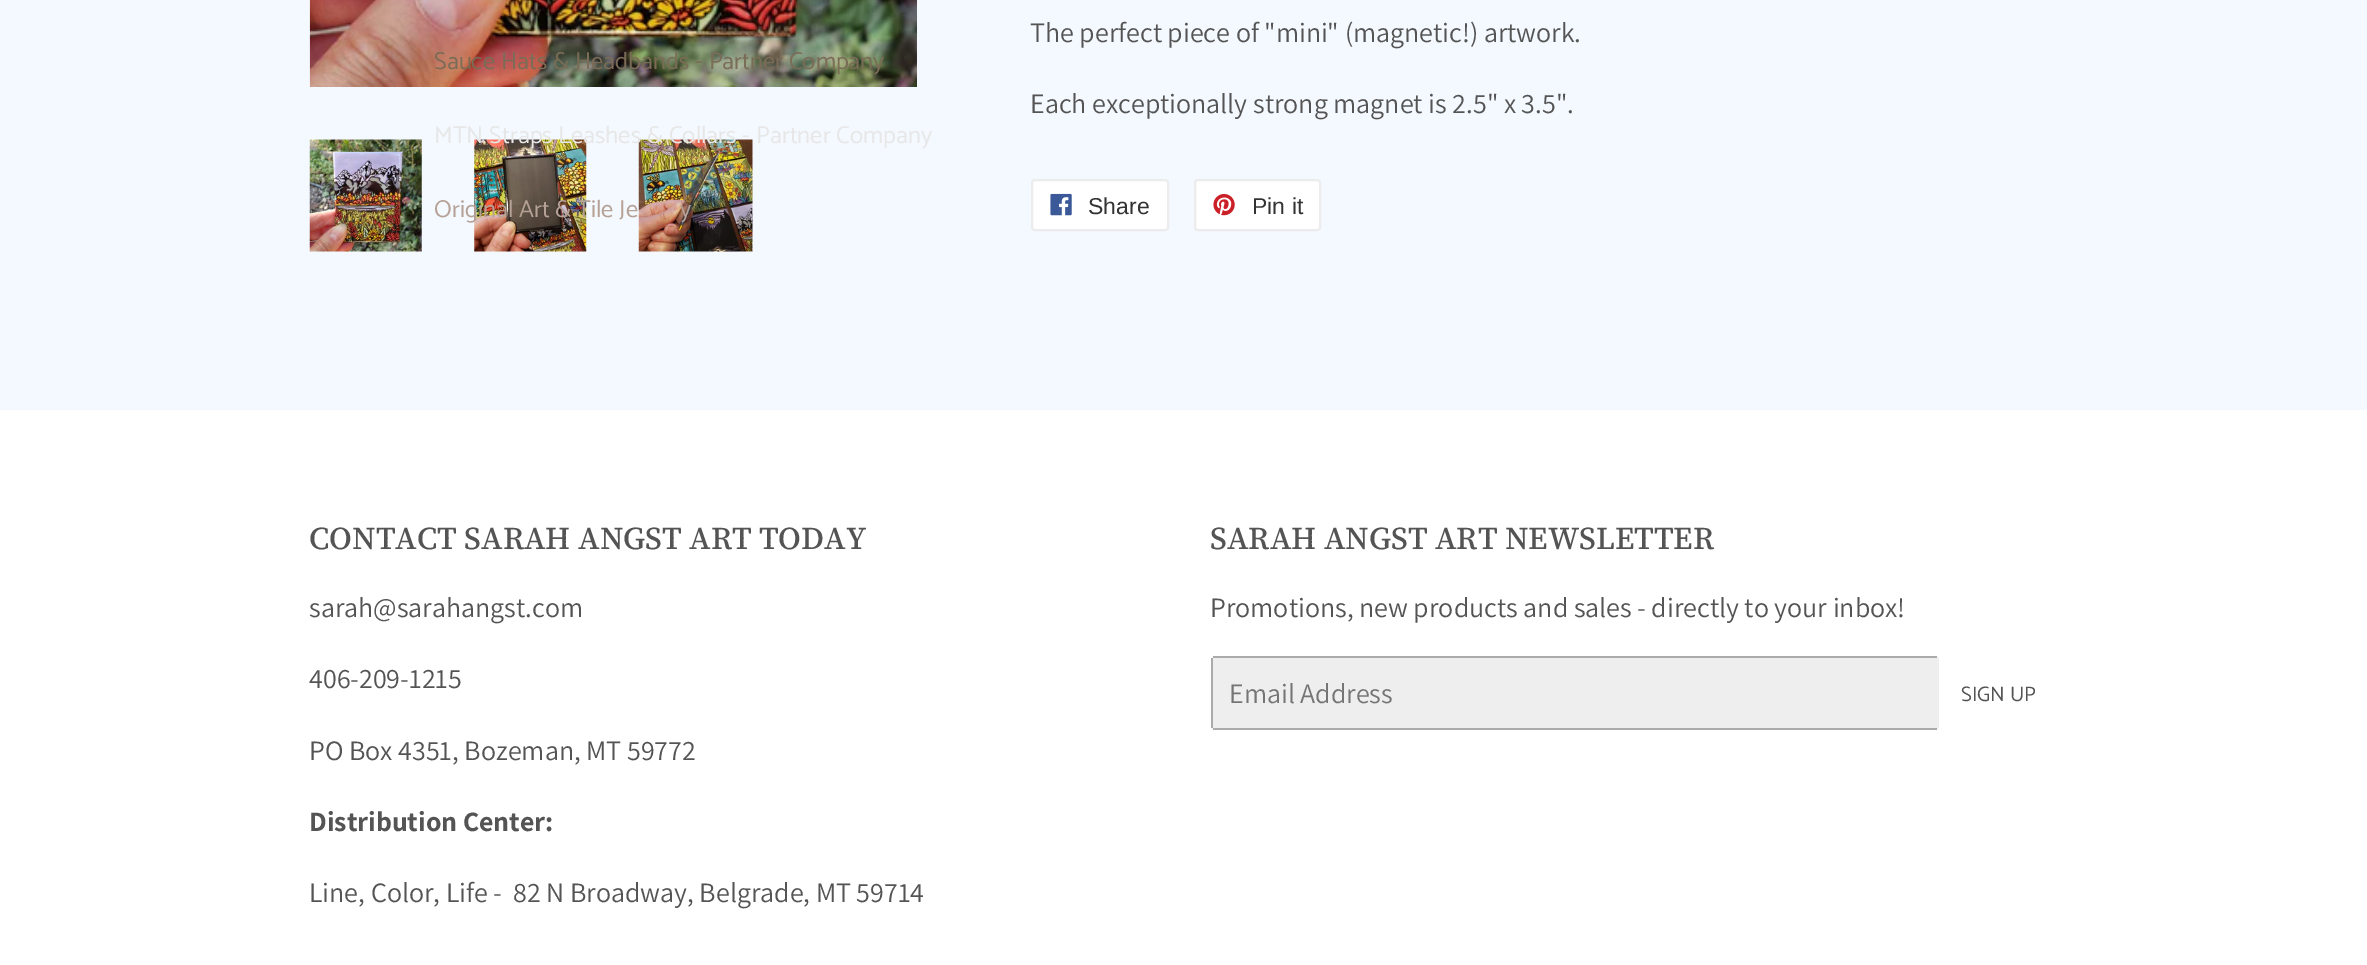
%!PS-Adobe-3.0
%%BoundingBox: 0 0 2367 965
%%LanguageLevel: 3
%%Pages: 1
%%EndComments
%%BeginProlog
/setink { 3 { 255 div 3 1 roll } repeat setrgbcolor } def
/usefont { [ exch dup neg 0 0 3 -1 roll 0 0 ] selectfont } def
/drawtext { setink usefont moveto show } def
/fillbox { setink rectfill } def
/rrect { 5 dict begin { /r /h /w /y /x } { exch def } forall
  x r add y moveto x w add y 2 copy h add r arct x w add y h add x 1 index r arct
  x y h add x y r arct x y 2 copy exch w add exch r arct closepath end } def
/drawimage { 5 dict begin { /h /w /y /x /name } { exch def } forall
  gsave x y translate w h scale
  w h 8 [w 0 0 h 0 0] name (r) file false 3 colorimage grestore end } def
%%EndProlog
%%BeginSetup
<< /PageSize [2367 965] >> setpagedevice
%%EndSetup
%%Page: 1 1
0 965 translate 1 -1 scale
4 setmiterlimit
0 0 2367 965 244 249 255 fillbox
(assets/img1.rgb) 309 0 608 87 drawimage
(Sauce Hats & Headbands - Partner Company) 434 69 /Catamaran-Regular 24.5 122 108 86 drawtext
(assets/img3.rgb) 474 139 113 113 drawimage
(assets/img4.rgb) 638 139 115 113 drawimage
(MTN Straps Leashes & Collars - Partner Company) 434 143 /Catamaran-Regular 24.5 231 231 231 drawtext
(Original Art & Tile Je) 434 217 /Catamaran-Regular 24.5 181 161 150 drawtext
(y) 680 217 /Catamaran-Regular 24.5 181 161 150 drawtext
(assets/img2.rgb) 309 139 113 113 drawimage
(The perfect piece of "mini" \(magnetic!\) artwork.) 1030 42 /Assistant-Regular 28 84 84 84 drawtext
(Each exceptionally strong magnet is 2.5" x 3.5".) 1030 113 /Assistant-Regular 28 84 84 84 drawtext
255 255 255 setink
1032 180 136 50 3 rrect gsave fill grestore
236 236 236 setink
2 setlinewidth
stroke
(assets/img5.rgb) 1050 193 22 23 drawimage
(Share) 1088 214 /LiberationSans-Regular 23 51 51 51 drawtext
255 255 255 setink
1195 180 125 50 3 rrect gsave fill grestore
236 236 236 setink
stroke
(assets/img6.rgb) 1213 194 22 22 drawimage
(Pin it) 1252 214 /LiberationSans-Regular 23 51 51 51 drawtext
0 410 2367 555 255 255 255 fillbox
(CONTACT SARAH ANGST ART TODAY) 309 549 /SourceSerif4-Medium 31.75 84 84 84 drawtext
(sarah@sarahangst.com) 309 617 /Assistant-Regular 28 84 84 84 drawtext
(406-209-1215) 309 688 /Assistant-Regular 28 84 84 84 drawtext
(PO Box 4351, Bozeman, MT 59772) 309 760 /Assistant-Regular 28 84 84 84 drawtext
(Distribution Center:) 309 831 /Assistant-Bold 28 84 84 84 drawtext
(Line, Color, Life -  82 N Broadway, Belgrade, MT 59714) 309 902 /Assistant-Regular 28 84 84 84 drawtext
(SARAH ANGST ART NEWSLETTER) 1210 549 /SourceSerif4-Medium 31.75 84 84 84 drawtext
(Promotions, new products and sales - directly to your inbox!) 1210 617 /Assistant-Regular 28 84 84 84 drawtext
238 238 238 setink
1211 656 728 74 4 rrect fill
1213 656 724 2 171 171 171 fillbox
1213 728 724 2 171 171 171 fillbox
1211 658 2 70 171 171 171 fillbox
(Email Address) 1229 703 /Assistant-Regular 28 117 117 117 drawtext
(SIGN UP) 1961 701 /Catamaran-Regular 21 84 84 84 drawtext
showpage
%%EOF
